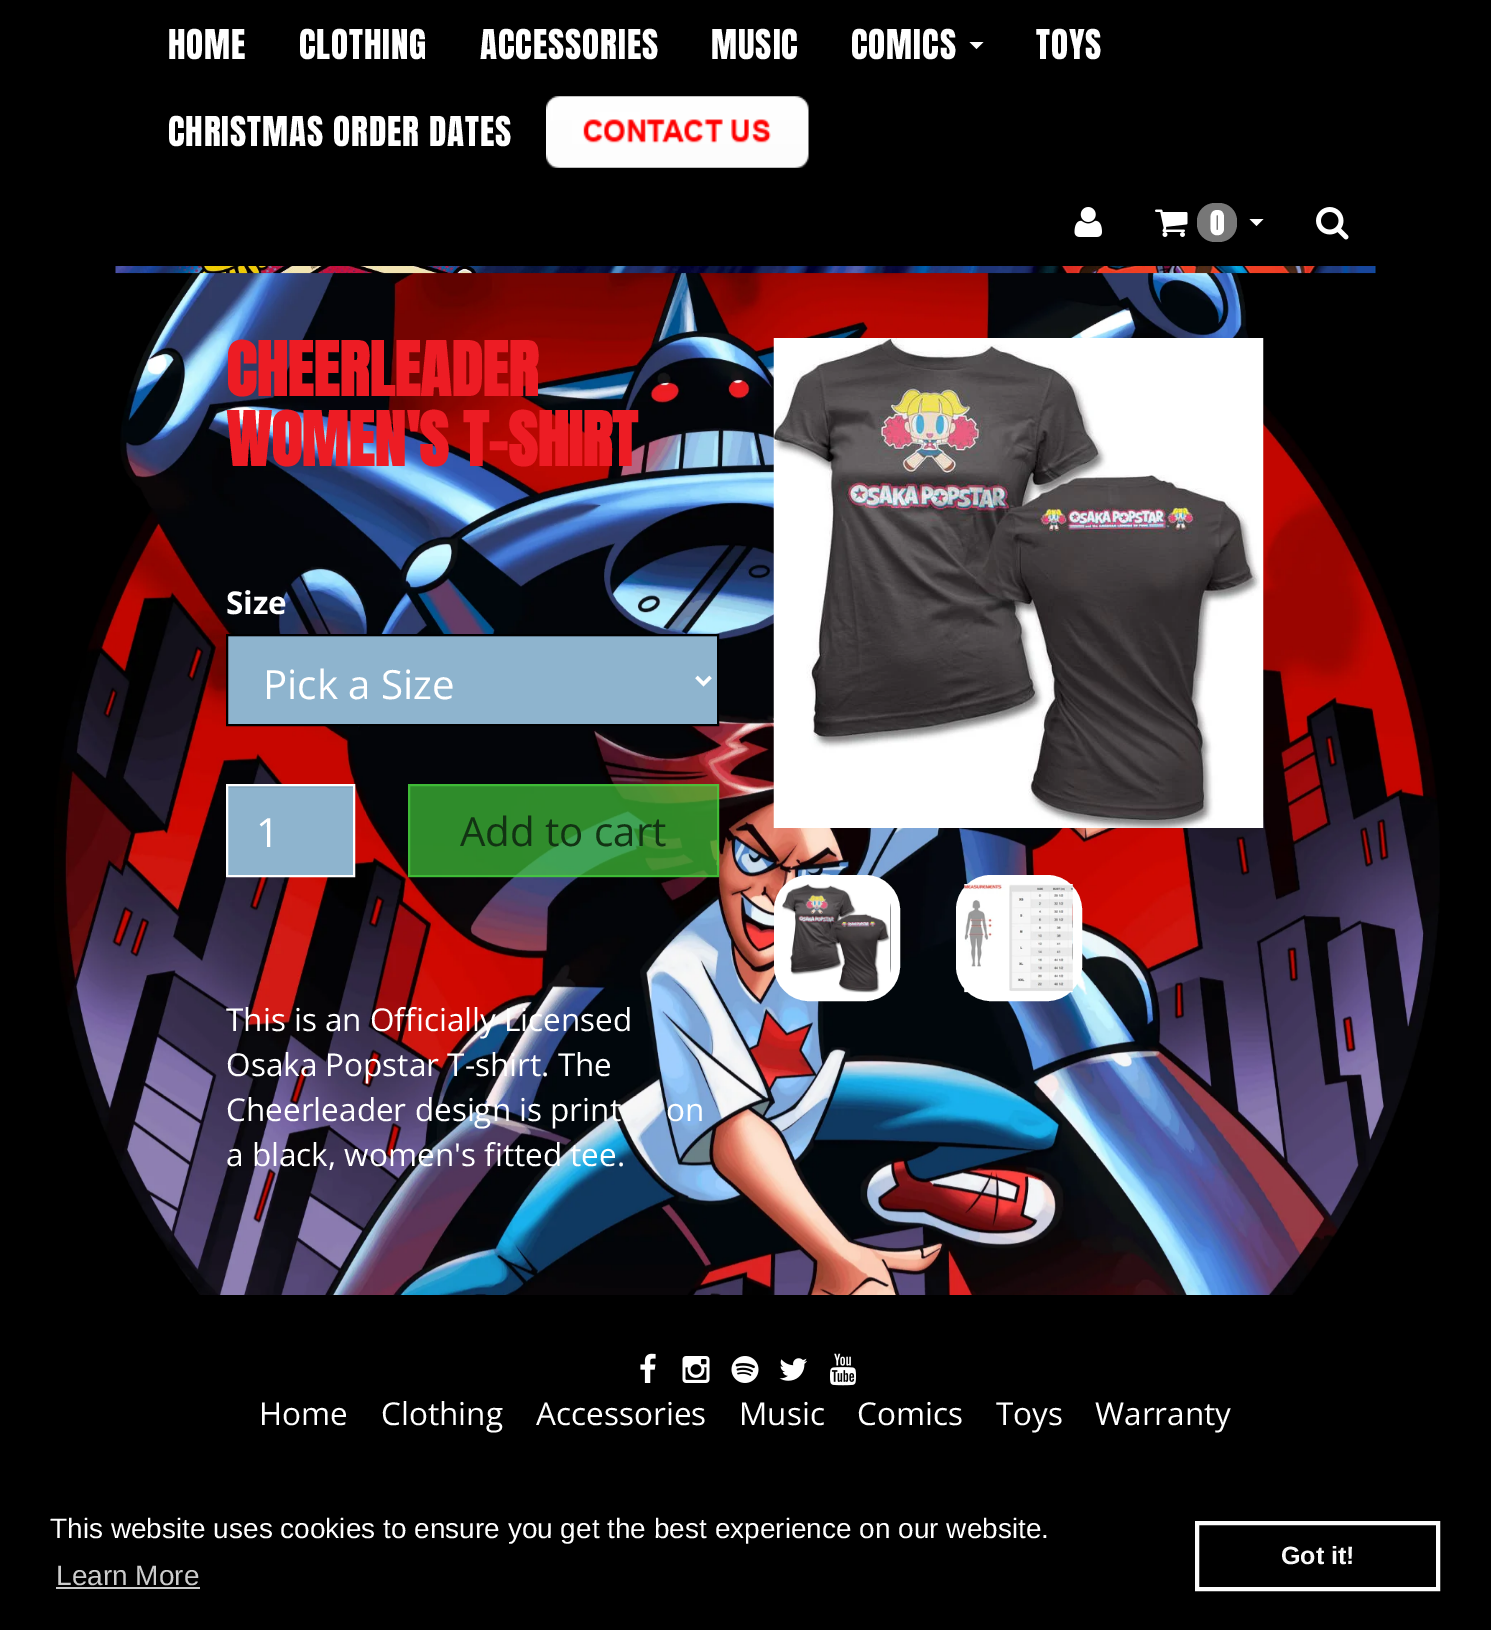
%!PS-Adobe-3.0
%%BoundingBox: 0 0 1491 1630
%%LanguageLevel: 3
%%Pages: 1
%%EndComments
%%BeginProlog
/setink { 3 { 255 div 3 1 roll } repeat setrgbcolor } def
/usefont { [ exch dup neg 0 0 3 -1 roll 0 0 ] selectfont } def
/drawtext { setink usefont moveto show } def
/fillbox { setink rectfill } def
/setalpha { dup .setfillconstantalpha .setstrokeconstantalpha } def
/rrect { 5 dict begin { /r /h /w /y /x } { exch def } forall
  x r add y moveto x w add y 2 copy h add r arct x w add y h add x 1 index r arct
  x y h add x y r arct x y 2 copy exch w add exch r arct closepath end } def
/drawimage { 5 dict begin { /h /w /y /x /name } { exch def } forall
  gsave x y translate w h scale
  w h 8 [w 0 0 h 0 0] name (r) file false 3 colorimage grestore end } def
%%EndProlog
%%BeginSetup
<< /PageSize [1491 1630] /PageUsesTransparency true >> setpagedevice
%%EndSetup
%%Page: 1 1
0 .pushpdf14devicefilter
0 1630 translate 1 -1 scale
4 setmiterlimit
0 0 1491 1630 0 0 0 fillbox
(assets/img1.rgb) 54 273 1386 1022 drawimage
/Anton-Regular 35 usefont
255 255 255 setink
168 59 moveto 0.9 0 (HOME) ashow
299 59 moveto 0.9 0 (CLOTHING) ashow
480 59 moveto 0.9 0 (ACCESSORIES) ashow
711 59 moveto 0.9 0 (MUSIC) ashow
851 59 moveto 0.9 0 (COMICS) ashow
969.5 42 moveto 983.5 42 lineto 976.5 49 lineto closepath fill
1036 59 moveto 0.9 0 (TOYS) ashow
168 146 moveto 0.9 0 (CHRISTMAS ORDER DATES) ashow
(assets/img2.rgb) 546 96 263 72 drawimage
(assets/img3.rgb) 1074 207 28 30 drawimage
(assets/img4.rgb) 1155 209 33 28 drawimage
119 119 119 setink
1197 203 40 39 18 rrect fill
/Anton-Bold 28 usefont
255 255 255 setink
1210 235 moveto 0.9 0 (0) ashow
1249.5 219 moveto 1263.5 219 lineto 1256.5 226 lineto closepath fill
(assets/img5.rgb) 1316 207 33 33 drawimage
(assets/img6.rgb) 115 266 1261 8 drawimage
(CHEERLEADER) 226 396 /Anton-Bold 63 237 28 36 drawtext
(WOMEN'S T-SHIRT) 226 466 /Anton-Bold 63 237 28 36 drawtext
(Size) 226 614 /OpenSans-Bold 31.5 255 255 255 drawtext
228 637 489 87 142 180 206 fillbox
228 636 490 1 131 167 191 fillbox
0 0 0 setink
2 setlinewidth
227 635 491 90 rectstroke
255 255 255 setink
3.5 setlinewidth
696.5 677 moveto 703.5 684 lineto 710.5 677 lineto stroke
(Pick a Size) 263 699 /OpenSans-Regular 40.25 255 255 255 drawtext
228 788 125 87 142 180 206 fillbox
228 786 126 2 131 167 191 fillbox
255 255 255 setink
2 setlinewidth
227 785 127 91 rectstroke
(1) 256 847 /OpenSans-Regular 40.25 255 255 255 drawtext
0.65 setalpha
408 784 311 93 71 212 61 fillbox
409 785 309 91 rectstroke
1 setalpha
(Add to cart) 460 846 /OpenSans-Regular 40.25 18 51 19 drawtext
(This is an Officially Licensed) 226 1031 /OpenSans-Regular 31.5 255 255 255 drawtext
(Osaka Popstar T-shirt. The) 226 1076 /OpenSans-Regular 31.5 255 255 255 drawtext
(Cheerleader design is print) 226 1121 /OpenSans-Regular 31.5 255 255 255 drawtext
(on) 666 1121 /OpenSans-Regular 31.5 255 255 255 drawtext
(a black, women's fitted tee.) 226 1166 /OpenSans-Regular 31.5 255 255 255 drawtext
(assets/img7.rgb) 773 338 491 490 drawimage
9 setlinewidth
778.5 879.5 117 117 30.5 rrect stroke
(assets/img8.rgb) 782 884 109 109 drawimage
960.5 879.5 117 117 30.5 rrect stroke
(assets/img9.rgb) 964 884 109 109 drawimage
(assets/img10.rgb) 640 1353 16 30 drawimage
(assets/img11.rgb) 682 1356 28 27 drawimage
(assets/img12.rgb) 731 1356 28 27 drawimage
(assets/img13.rgb) 779 1358 28 23 drawimage
(assets/img14.rgb) 830 1353 26 33 drawimage
(Home) 259 1425 /OpenSans-Regular 31.5 255 255 255 drawtext
(Clothing) 381 1425 /OpenSans-Regular 31.5 255 255 255 drawtext
(Accessories) 536 1425 /OpenSans-Regular 31.5 255 255 255 drawtext
(Music) 739 1425 /OpenSans-Regular 31.5 255 255 255 drawtext
(Comics) 857 1425 /OpenSans-Regular 31.5 255 255 255 drawtext
(Toys) 996 1425 /OpenSans-Regular 31.5 255 255 255 drawtext
(Warranty) 1095 1425 /OpenSans-Regular 31.5 255 255 255 drawtext
(This website uses cookies to ensure you get the best experience on our website.) 50 1538 /LiberationSans-Regular 28 255 255 255 drawtext
(Learn More) 56 1585 /LiberationSans-Regular 28 204 204 204 drawtext
56 1587 144 2 204 204 204 fillbox
253 253 253 setink
4 setlinewidth
1197 1523 241 66 rectstroke
(Got it!) 1281 1564 /LiberationSans-Bold 25 249 249 249 drawtext
.poppdf14devicefilter showpage
%%EOF
